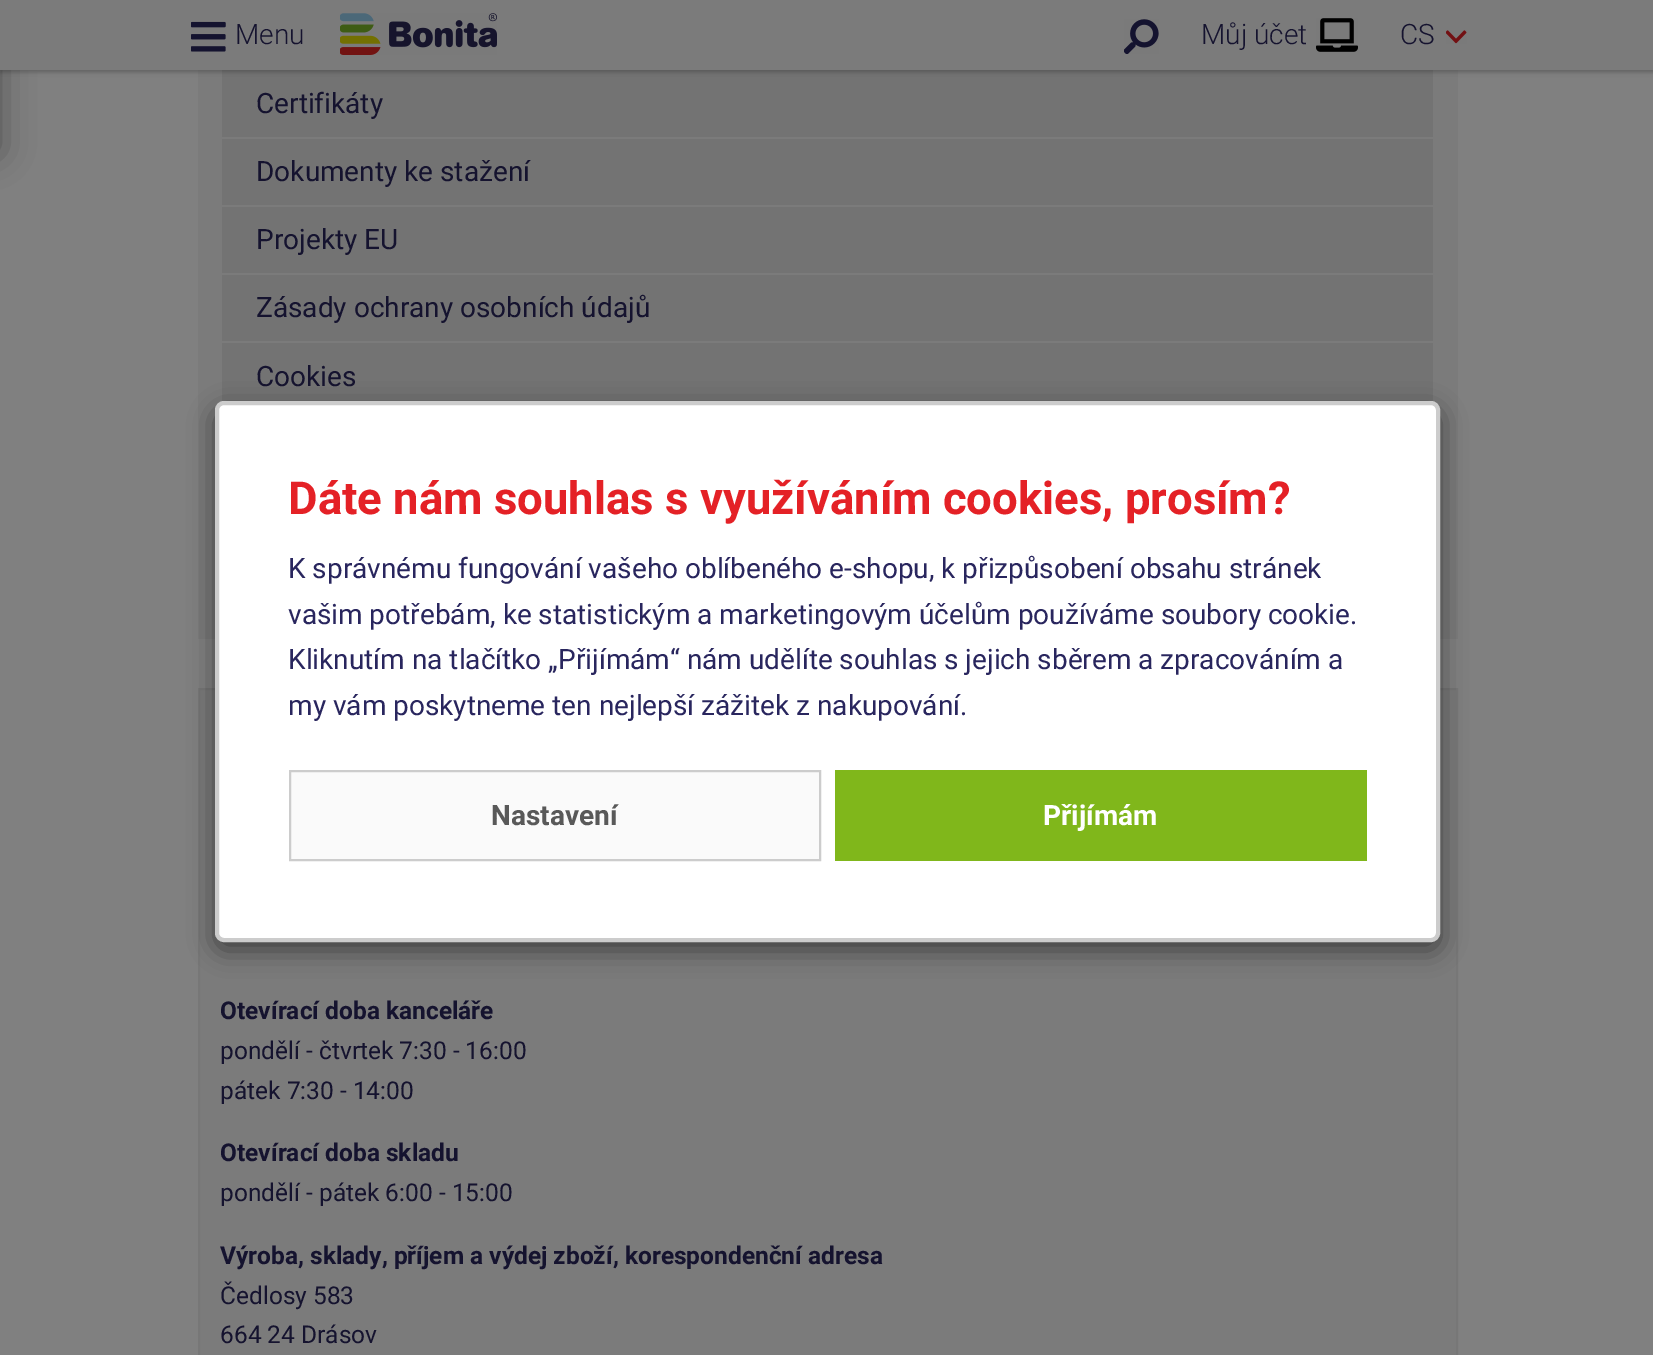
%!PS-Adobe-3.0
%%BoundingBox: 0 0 1653 1355
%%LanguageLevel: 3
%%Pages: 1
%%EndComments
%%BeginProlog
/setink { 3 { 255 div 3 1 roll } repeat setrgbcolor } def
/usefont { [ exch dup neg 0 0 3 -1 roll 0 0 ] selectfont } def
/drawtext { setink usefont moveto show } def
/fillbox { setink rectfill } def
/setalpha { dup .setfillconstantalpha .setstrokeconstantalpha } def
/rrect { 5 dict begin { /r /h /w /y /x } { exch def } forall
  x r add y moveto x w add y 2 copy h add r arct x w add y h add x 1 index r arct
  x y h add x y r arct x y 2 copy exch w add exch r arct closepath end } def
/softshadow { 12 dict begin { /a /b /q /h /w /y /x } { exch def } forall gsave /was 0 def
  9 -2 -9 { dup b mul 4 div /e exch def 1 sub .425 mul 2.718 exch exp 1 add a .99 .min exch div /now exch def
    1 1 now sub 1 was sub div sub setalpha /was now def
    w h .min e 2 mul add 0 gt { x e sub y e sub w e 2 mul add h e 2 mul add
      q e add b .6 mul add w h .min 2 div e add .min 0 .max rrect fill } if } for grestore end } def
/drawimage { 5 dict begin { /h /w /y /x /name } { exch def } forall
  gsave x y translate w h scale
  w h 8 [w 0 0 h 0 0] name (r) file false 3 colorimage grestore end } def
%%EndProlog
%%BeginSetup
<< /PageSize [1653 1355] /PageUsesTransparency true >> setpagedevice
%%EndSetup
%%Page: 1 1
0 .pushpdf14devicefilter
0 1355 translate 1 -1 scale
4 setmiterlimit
0 0 1653 1355 128 128 128 fillbox
0 0 0 setink
-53 -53 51 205 0 17.5 0.4 softshadow
198 70 1260 569 123 123 123 fillbox
222 70 1211 332 115 115 115 fillbox
0 0 0 setink
0 2 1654 70 0 2.5 0.25 softshadow
0 0 1653 70 123 123 123 fillbox
(assets/img1.rgb) 191 21 35 31 drawimage
(Menu) 235 44 /Roboto-Light 28 21 19 47 drawtext
(assets/img2.rgb) 340 13 157 42 drawimage
(assets/img3.rgb) 1124 19 35 35 drawimage
(Můj účet) 1201 44 /Roboto-Light 28 21 19 47 drawtext
(assets/img4.rgb) 1316 18 42 34 drawimage
(CS) 1400 44 /Roboto-Light 28 21 19 47 drawtext
(assets/img5.rgb) 1446 30 21 14 drawimage
222 137 1211 2 123 123 123 fillbox
(Certifikáty) 256 113 /Roboto-Regular 28 21 19 47 drawtext
222 205 1211 2 123 123 123 fillbox
(Dokumenty ke stažení) 256 181 /Roboto-Regular 28 21 19 47 drawtext
222 273 1211 2 123 123 123 fillbox
(Projekty EU) 256 249 /Roboto-Regular 28 21 19 47 drawtext
222 341 1211 2 123 123 123 fillbox
(Zásady ochrany osobních údajů) 256 317 /Roboto-Regular 28 21 19 47 drawtext
(Cookies) 256 386 /Roboto-Regular 28 21 19 47 drawtext
123 123 123 setink
199 689 moveto 1457 689 lineto 1457 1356 lineto 199 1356 lineto closepath gsave fill grestore
119 119 119 setink
2 setlinewidth
stroke
(Otevírací doba kanceláře) 220 1019 /Roboto-Bold 24.5 21 19 47 drawtext
(pondělí - čtvrtek 7:30 - 16:00) 220 1059 /Roboto-Regular 24.5 21 19 47 drawtext
(pátek 7:30 - 14:00) 220 1099 /Roboto-Regular 24.5 21 19 47 drawtext
(Otevírací doba skladu) 220 1161 /Roboto-Bold 24.5 21 19 47 drawtext
(pondělí - pátek 6:00 - 15:00) 220 1201 /Roboto-Regular 24.5 21 19 47 drawtext
(Výroba, sklady, příjem a výdej zboží, korespondenční adresa) 220 1264 /Roboto-Bold 24.5 21 19 47 drawtext
(Čedlosy 583) 220 1304 /Roboto-Regular 24.5 21 19 47 drawtext
(664 24 Drásov) 220 1343 /Roboto-Regular 24.5 21 19 47 drawtext
0 0 0 setink
215 410 1225 540 9 13 0.5 softshadow
255 255 255 setink
217 403 1221 537 7 rrect gsave fill grestore
204 204 204 setink
4 setlinewidth
stroke
(Dáte nám souhlas s využíváním cookies, prosím?) 288 514 /Roboto-Bold 45.5 228 33 38 drawtext
(K správnému fungování vašeho oblíbeného e-shopu, k přizpůsobení obsahu stránek) 288 578 /Roboto-Regular 28 41 38 94 drawtext
(vašim potřebám, ke statistickým a marketingovým účelům používáme soubory cookie.) 288 624 /Roboto-Regular 28 41 38 94 drawtext
(Kliknutím na tlačítko „Přijímám“ nám udělíte souhlas s jejich sběrem a zpracováním a) 288 669 /Roboto-Regular 28 41 38 94 drawtext
(my vám poskytneme ten nejlepší zážitek z nakupování.) 288 715 /Roboto-Regular 28 41 38 94 drawtext
250 250 250 setink
290 771 moveto 820 771 lineto 820 860 lineto 290 860 lineto closepath gsave fill grestore
204 204 204 setink
2 setlinewidth
stroke
(Nastavení) 491 825 /Roboto-Bold 28 89 89 89 drawtext
835 770 532 91 128 183 27 fillbox
(Přijímám) 1043 825 /Roboto-Bold 28 255 255 255 drawtext
.poppdf14devicefilter showpage
%%EOF
